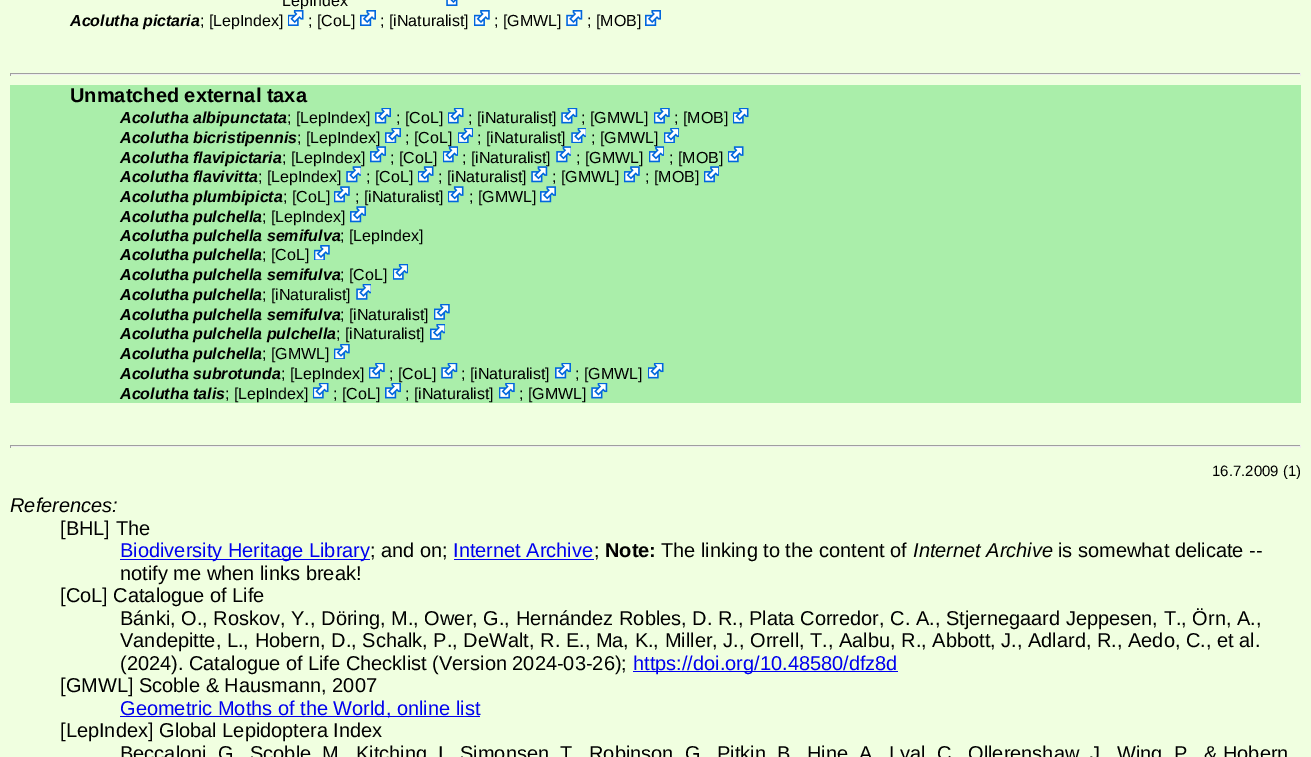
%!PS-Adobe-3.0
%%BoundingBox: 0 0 1311 757
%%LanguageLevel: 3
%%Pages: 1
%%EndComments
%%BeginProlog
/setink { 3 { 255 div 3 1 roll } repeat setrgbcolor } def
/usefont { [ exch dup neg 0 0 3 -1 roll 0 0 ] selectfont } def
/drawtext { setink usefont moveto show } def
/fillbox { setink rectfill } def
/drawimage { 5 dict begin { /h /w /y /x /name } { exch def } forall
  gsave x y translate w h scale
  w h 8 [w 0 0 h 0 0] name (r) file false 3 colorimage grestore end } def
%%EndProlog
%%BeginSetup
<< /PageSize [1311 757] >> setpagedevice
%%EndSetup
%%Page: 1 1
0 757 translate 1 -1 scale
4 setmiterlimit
0 0 1311 757 240 255 224 fillbox
(LepIndex) 282 6 /LiberationSans-Regular 16 0 0 0 drawtext
(assets/img1.rgb) 446 0 12 6 drawimage
(Acolutha pictaria) 70 26 /LiberationSans-BoldItalic 16 0 0 0 drawtext
(; [LepIndex]) 200 26 /LiberationSans-Regular 16 0 0 0 drawtext
(assets/img2.rgb) 288 10 16 16 drawimage
(; [CoL]) 308 26 /LiberationSans-Regular 16 0 0 0 drawtext
(assets/img3.rgb) 360 10 16 16 drawimage
(; [iNaturalist]) 380 26 /LiberationSans-Regular 16 0 0 0 drawtext
(assets/img4.rgb) 474 10 16 16 drawimage
(; [GMWL]) 494 26 /LiberationSans-Regular 16 0 0 0 drawtext
(assets/img5.rgb) 566 10 17 16 drawimage
(; [MOB]) 587 26 /LiberationSans-Regular 16 0 0 0 drawtext
(assets/img3.rgb) 645 10 16 16 drawimage
10 73 1291 1 159 159 159 fillbox
1300 73 1 3 238 238 238 fillbox
10 74 1291 1 238 238 238 fillbox
10 73 1 3 159 159 159 fillbox
10 85 1291 318 170 238 170 fillbox
(Unmatched external taxa) 70 102 /LiberationSans-Bold 20 0 0 0 drawtext
(Acolutha albipunctata) 120 123 /LiberationSans-BoldItalic 16 0 0 0 drawtext
(; [LepIndex]) 287 123 /LiberationSans-Regular 16 0 0 0 drawtext
(assets/img6.rgb) 375 108 16 16 drawimage
(; [CoL]) 396 123 /LiberationSans-Regular 16 0 0 0 drawtext
(assets/img7.rgb) 448 108 16 16 drawimage
(; [iNaturalist]) 468 123 /LiberationSans-Regular 16 0 0 0 drawtext
(assets/img8.rgb) 561 108 17 16 drawimage
(; [GMWL]) 581 123 /LiberationSans-Regular 16 0 0 0 drawtext
(assets/img9.rgb) 654 108 16 16 drawimage
(; [MOB]) 674 123 /LiberationSans-Regular 16 0 0 0 drawtext
(assets/img7.rgb) 733 108 16 16 drawimage
(Acolutha bicristipennis) 120 143 /LiberationSans-BoldItalic 16 0 0 0 drawtext
(; [LepIndex]) 297 143 /LiberationSans-Regular 16 0 0 0 drawtext
(assets/img10.rgb) 385 128 16 15 drawimage
(; [CoL]) 405 143 /LiberationSans-Regular 16 0 0 0 drawtext
(assets/img11.rgb) 458 128 15 15 drawimage
(; [iNaturalist]) 477 143 /LiberationSans-Regular 16 0 0 0 drawtext
(assets/img12.rgb) 571 128 15 15 drawimage
(; [GMWL]) 591 143 /LiberationSans-Regular 16 0 0 0 drawtext
(assets/img13.rgb) 664 128 15 15 drawimage
(Acolutha flavipictaria) 120 163 /LiberationSans-BoldItalic 16 0 0 0 drawtext
(; [LepIndex]) 282 163 /LiberationSans-Regular 16 0 0 0 drawtext
(assets/img14.rgb) 370 146 16 17 drawimage
(; [CoL]) 390 163 /LiberationSans-Regular 16 0 0 0 drawtext
(assets/img15.rgb) 443 146 15 17 drawimage
(; [iNaturalist]) 462 163 /LiberationSans-Regular 16 0 0 0 drawtext
(assets/img16.rgb) 556 146 15 17 drawimage
(; [GMWL]) 576 163 /LiberationSans-Regular 16 0 0 0 drawtext
(assets/img17.rgb) 649 146 15 17 drawimage
(; [MOB]) 669 163 /LiberationSans-Regular 16 0 0 0 drawtext
(assets/img18.rgb) 728 146 16 17 drawimage
(Acolutha flavivitta) 120 182 /LiberationSans-BoldItalic 16 0 0 0 drawtext
(; [LepIndex]) 258 182 /LiberationSans-Regular 16 0 0 0 drawtext
(assets/img19.rgb) 346 166 15 17 drawimage
(; [CoL]) 366 182 /LiberationSans-Regular 16 0 0 0 drawtext
(assets/img20.rgb) 418 166 16 17 drawimage
(; [iNaturalist]) 438 182 /LiberationSans-Regular 16 0 0 0 drawtext
(assets/img21.rgb) 531 166 17 17 drawimage
(; [GMWL]) 552 182 /LiberationSans-Regular 16 0 0 0 drawtext
(assets/img22.rgb) 624 166 16 17 drawimage
(; [MOB]) 645 182 /LiberationSans-Regular 16 0 0 0 drawtext
(assets/img23.rgb) 704 166 15 17 drawimage
(Acolutha plumbipicta) 120 202 /LiberationSans-BoldItalic 16 0 0 0 drawtext
(; [CoL]) 283 202 /LiberationSans-Regular 16 0 0 0 drawtext
(assets/img24.rgb) 334 186 16 17 drawimage
(; [iNaturalist]) 355 202 /LiberationSans-Regular 16 0 0 0 drawtext
(assets/img18.rgb) 448 186 16 17 drawimage
(; [GMWL]) 469 202 /LiberationSans-Regular 16 0 0 0 drawtext
(assets/img25.rgb) 540 186 16 17 drawimage
(Acolutha pulchella) 120 222 /LiberationSans-BoldItalic 16 0 0 0 drawtext
(; [LepIndex]) 262 222 /LiberationSans-Regular 16 0 0 0 drawtext
(assets/img25.rgb) 350 206 16 17 drawimage
(Acolutha pulchella semifulva) 120 241 /LiberationSans-BoldItalic 16 0 0 0 drawtext
(; [LepIndex]) 340 241 /LiberationSans-Regular 16 0 0 0 drawtext
(Acolutha pulchella) 120 260 /LiberationSans-BoldItalic 16 0 0 0 drawtext
(; [CoL]) 262 260 /LiberationSans-Regular 16 0 0 0 drawtext
(assets/img26.rgb) 314 245 16 15 drawimage
(Acolutha pulchella semifulva) 120 280 /LiberationSans-BoldItalic 16 0 0 0 drawtext
(; [CoL]) 340 280 /LiberationSans-Regular 16 0 0 0 drawtext
(assets/img27.rgb) 393 264 15 16 drawimage
(Acolutha pulchella) 120 300 /LiberationSans-BoldItalic 16 0 0 0 drawtext
(; [iNaturalist]) 262 300 /LiberationSans-Regular 16 0 0 0 drawtext
(assets/img28.rgb) 356 284 15 16 drawimage
(Acolutha pulchella semifulva) 120 320 /LiberationSans-BoldItalic 16 0 0 0 drawtext
(; [iNaturalist]) 340 320 /LiberationSans-Regular 16 0 0 0 drawtext
(assets/img29.rgb) 434 304 16 16 drawimage
(Acolutha pulchella pulchella) 120 339 /LiberationSans-BoldItalic 16 0 0 0 drawtext
(; [iNaturalist]) 336 339 /LiberationSans-Regular 16 0 0 0 drawtext
(assets/img30.rgb) 430 324 15 16 drawimage
(Acolutha pulchella) 120 359 /LiberationSans-BoldItalic 16 0 0 0 drawtext
(; [GMWL]) 262 359 /LiberationSans-Regular 16 0 0 0 drawtext
(assets/img31.rgb) 334 344 16 15 drawimage
(Acolutha subrotunda) 120 379 /LiberationSans-BoldItalic 16 0 0 0 drawtext
(; [LepIndex]) 281 379 /LiberationSans-Regular 16 0 0 0 drawtext
(assets/img9.rgb) 369 363 16 16 drawimage
(; [CoL]) 389 379 /LiberationSans-Regular 16 0 0 0 drawtext
(assets/img8.rgb) 441 363 17 16 drawimage
(; [iNaturalist]) 461 379 /LiberationSans-Regular 16 0 0 0 drawtext
(assets/img6.rgb) 555 363 16 16 drawimage
(; [GMWL]) 575 379 /LiberationSans-Regular 16 0 0 0 drawtext
(assets/img7.rgb) 648 363 16 16 drawimage
(Acolutha talis) 120 399 /LiberationSans-BoldItalic 16 0 0 0 drawtext
(; [LepIndex]) 225 399 /LiberationSans-Regular 16 0 0 0 drawtext
(assets/img7.rgb) 313 383 16 16 drawimage
(; [CoL]) 333 399 /LiberationSans-Regular 16 0 0 0 drawtext
(assets/img6.rgb) 385 383 16 16 drawimage
(; [iNaturalist]) 405 399 /LiberationSans-Regular 16 0 0 0 drawtext
(assets/img9.rgb) 499 383 16 16 drawimage
(; [GMWL]) 519 399 /LiberationSans-Regular 16 0 0 0 drawtext
(assets/img8.rgb) 591 383 17 16 drawimage
10 445 1291 1 159 159 159 fillbox
1300 445 1 3 238 238 238 fillbox
10 446 1291 1 238 238 238 fillbox
10 445 1 3 159 159 159 fillbox
(16.7.2009 \(1\)) 1212 476 /LiberationSans-Regular 15 0 0 0 drawtext
(References:) 10 512 /LiberationSans-Italic 20 0 0 0 drawtext
([BHL] The) 60 535 /LiberationSans-Regular 20 0 0 0 drawtext
120 559 250 1 0 0 238 fillbox
(Biodiversity Heritage Library) 120 557 /LiberationSans-Regular 20 0 0 238 drawtext
(; and on;) 370 557 /LiberationSans-Regular 20 0 0 0 drawtext
(Internet Archive) 453 557 /LiberationSans-Regular 20 0 0 238 drawtext
454 559 140 1 0 0 238 fillbox
(;) 594 557 /LiberationSans-Regular 20 0 0 0 drawtext
(Note:) 605 557 /LiberationSans-Bold 20 0 0 0 drawtext
(The linking to the content of) 661 557 /LiberationSans-Regular 20 0 0 0 drawtext
(Internet Archive) 913 557 /LiberationSans-Italic 20 0 0 0 drawtext
(is somewhat delicate --) 1058 557 /LiberationSans-Regular 20 0 0 0 drawtext
(notify me when links break!) 120 580 /LiberationSans-Regular 20 0 0 0 drawtext
([CoL] Catalogue of Life) 60 602 /LiberationSans-Regular 20 0 0 0 drawtext
(Bánki, O., Roskov, Y., Döring, M., Ower, G., Hernández Robles, D. R., Plata Corredor, C. A., Stjernegaard Jeppesen, T., Örn, A.,) 120 625 /LiberationSans-Regular 20 0 0 0 drawtext
(Vandepitte, L., Hobern, D., Schalk, P., DeWalt, R. E., Ma, K., Miller, J., Orrell, T., Aalbu, R., Abbott, J., Adlard, R., Aedo, C., et al.) 120 647 /LiberationSans-Regular 20 0 0 0 drawtext
(\(2024\). Catalogue of Life Checklist \(Version 2024-03-26\);) 120 670 /LiberationSans-Regular 20 0 0 0 drawtext
633 671 265 1 0 0 238 fillbox
(https://doi.org/10.48580/dfz8d) 633 670 /LiberationSans-Regular 20 0 0 238 drawtext
([GMWL] Scoble & Hausmann, 2007) 60 692 /LiberationSans-Regular 20 0 0 0 drawtext
120 716 360 1 0 0 238 fillbox
(Geometric Moths of the World, online list) 120 715 /LiberationSans-Regular 20 0 0 238 drawtext
([LepIndex] Global Lepidoptera Index) 60 737 /LiberationSans-Regular 20 0 0 0 drawtext
(Beccaloni, G) 120 760 /LiberationSans-Regular 20 0 0 0 drawtext
(Scoble, M) 250 760 /LiberationSans-Regular 20 0 0 0 drawtext
(Kitching, I) 356 760 /LiberationSans-Regular 20 0 0 0 drawtext
(Simonsen, T) 460 760 /LiberationSans-Regular 20 0 0 0 drawtext
(Robinson, G) 589 760 /LiberationSans-Regular 20 0 0 0 drawtext
(Pitkin, B) 717 760 /LiberationSans-Regular 20 0 0 0 drawtext
(Hine, A) 807 760 /LiberationSans-Regular 20 0 0 0 drawtext
(Lyal, C) 889 760 /LiberationSans-Regular 20 0 0 0 drawtext
(Ollerenshaw, J) 968 760 /LiberationSans-Regular 20 0 0 0 drawtext
(Wing, P) 1117 760 /LiberationSans-Regular 20 0 0 0 drawtext
(& Hobern) 1204 760 /LiberationSans-Regular 20 0 0 0 drawtext
showpage
%%EOF
